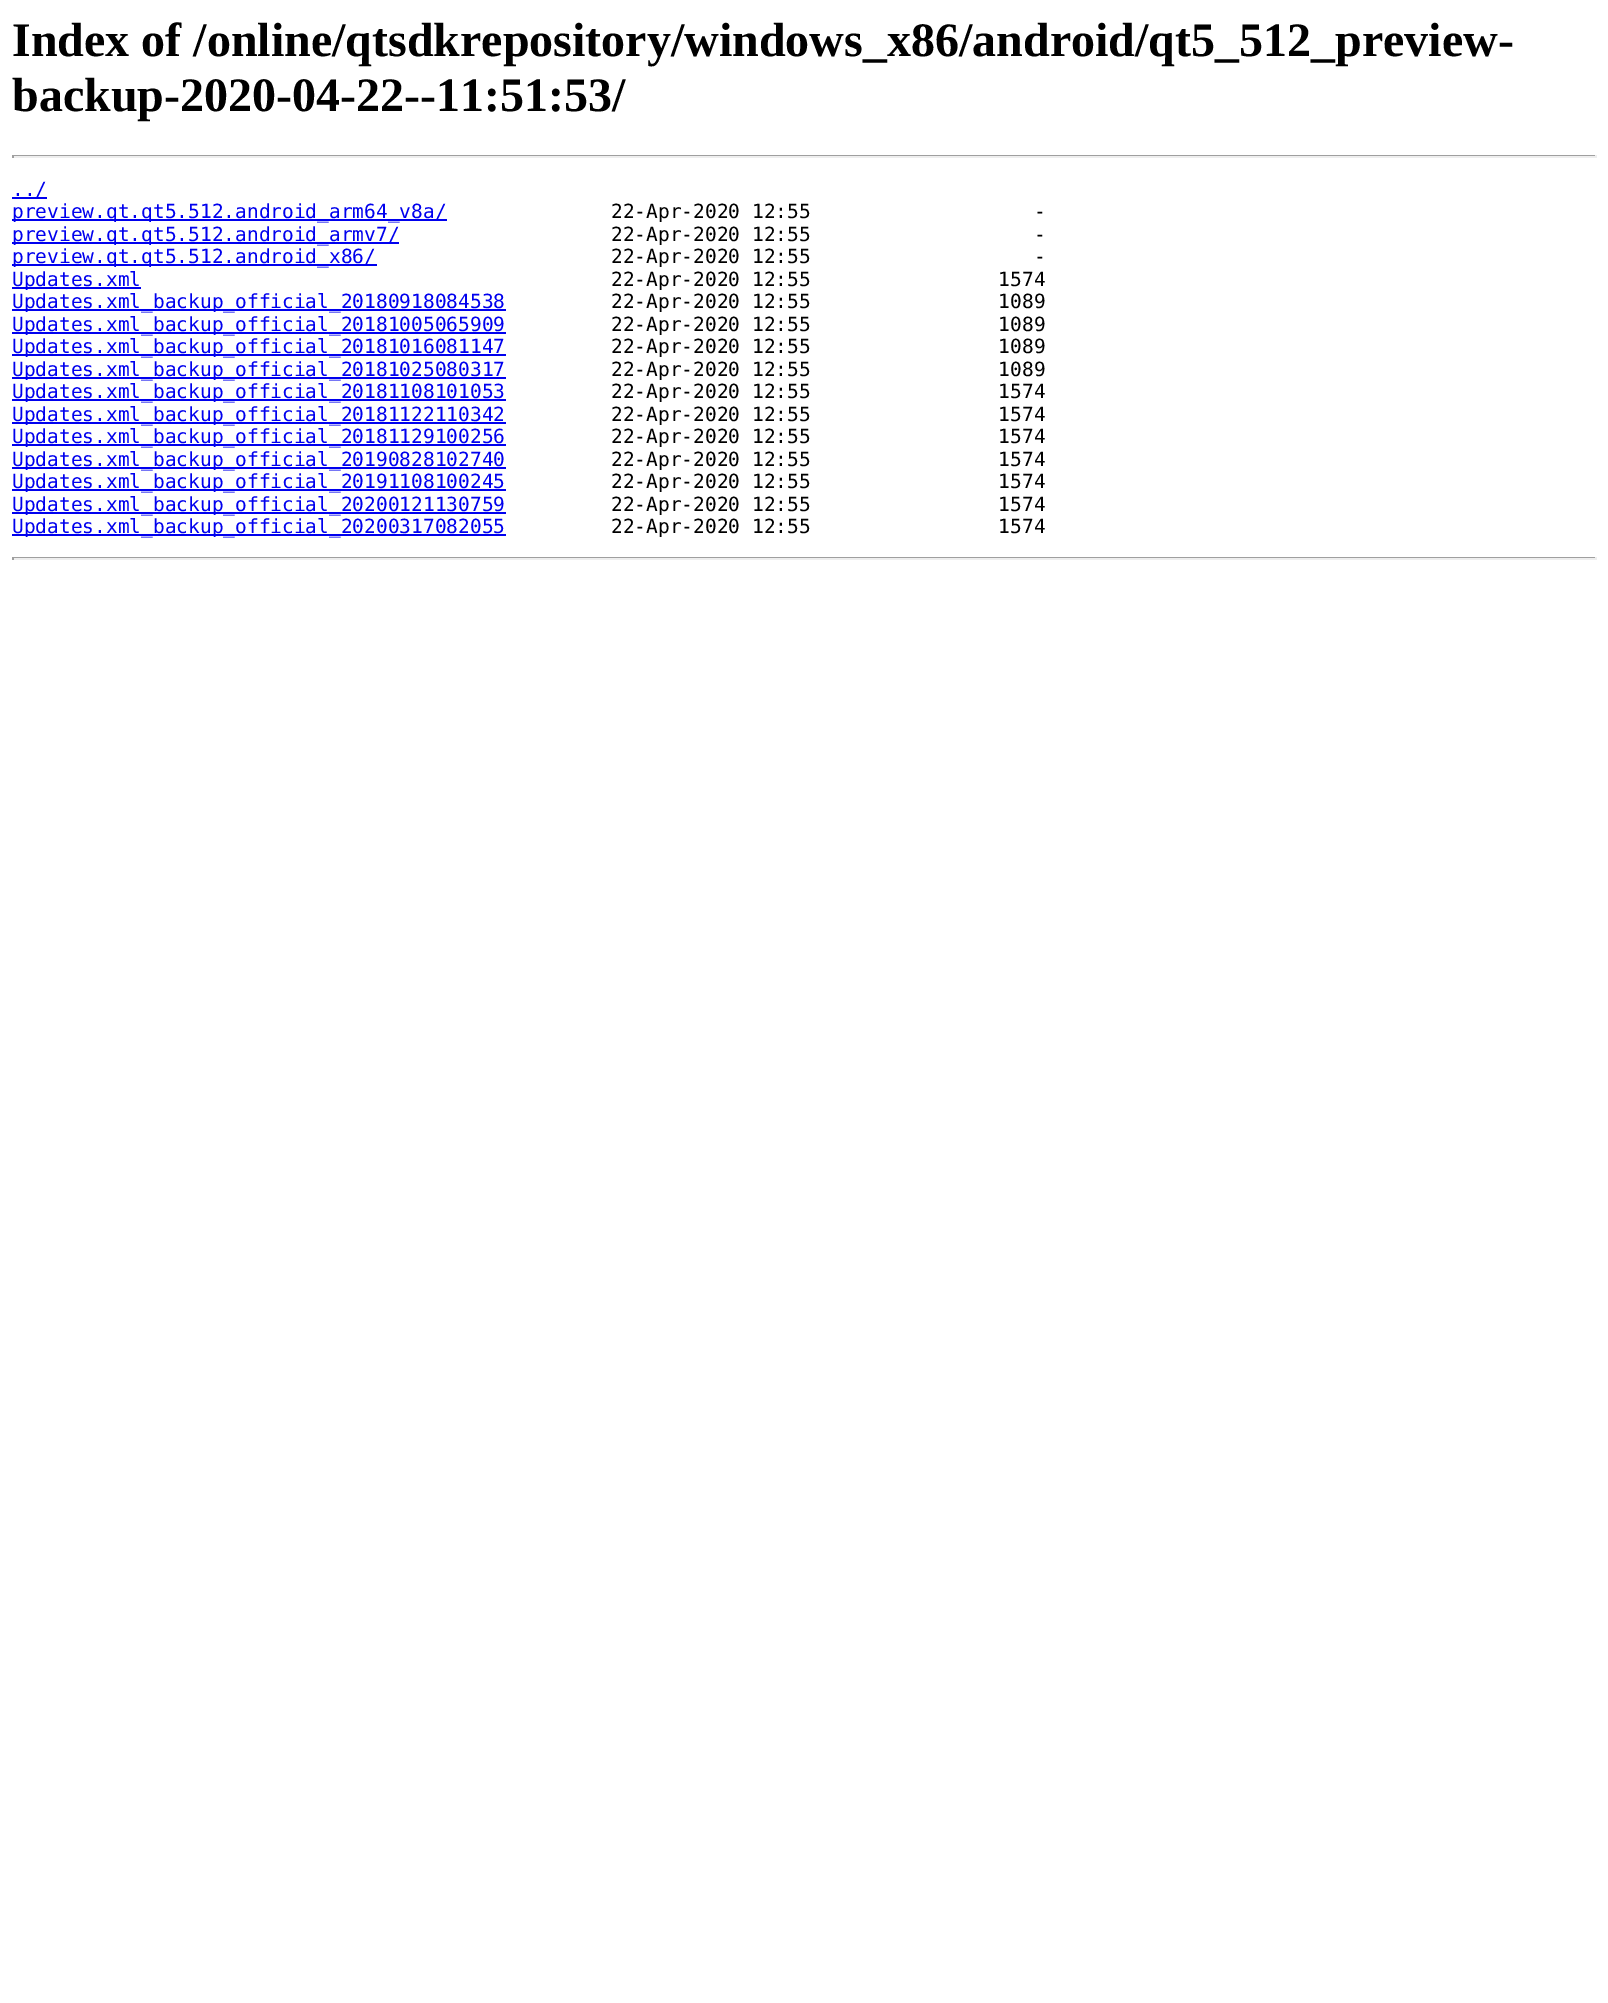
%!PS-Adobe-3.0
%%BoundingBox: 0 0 1608 2003
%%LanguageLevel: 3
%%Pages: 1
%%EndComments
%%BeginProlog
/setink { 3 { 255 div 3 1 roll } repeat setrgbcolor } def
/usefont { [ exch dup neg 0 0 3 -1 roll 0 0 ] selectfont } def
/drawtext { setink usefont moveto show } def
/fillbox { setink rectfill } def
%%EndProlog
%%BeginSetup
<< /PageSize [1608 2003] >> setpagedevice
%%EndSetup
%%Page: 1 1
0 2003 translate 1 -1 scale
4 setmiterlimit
0 0 1608 2003 255 255 255 fillbox
(Index of /online/qtsdkrepository/windows_x86/android/qt5_512_preview-) 12 56 /LiberationSerif-Bold 48 0 0 0 drawtext
(backup-2020-04-22--11:51:53/) 12 111 /LiberationSerif-Bold 48 0 0 0 drawtext
12 155 1584 1 159 159 159 fillbox
1595 155 2 3 238 238 238 fillbox
12 156 1584 2 238 238 238 fillbox
12 155 2 3 159 159 159 fillbox
12 197 35 2 0 0 238 fillbox
(../) 12 196 /DejaVuSansMono-Regular 19.5 0 0 238 drawtext
12 219 435 2 0 0 238 fillbox
(preview.qt.qt5.512.android_arm64_v8a/) 12 218 /DejaVuSansMono-Regular 19.5 0 0 238 drawtext
(22-Apr-2020 12:55                   -) 611 218 /DejaVuSansMono-Regular 19.5 0 0 0 drawtext
12 242 387 2 0 0 238 fillbox
(preview.qt.qt5.512.android_armv7/) 12 241 /DejaVuSansMono-Regular 19.5 0 0 238 drawtext
(22-Apr-2020 12:55                   -) 611 241 /DejaVuSansMono-Regular 19.5 0 0 0 drawtext
12 264 365 2 0 0 238 fillbox
(preview.qt.qt5.512.android_x86/) 12 263 /DejaVuSansMono-Regular 19.5 0 0 238 drawtext
(22-Apr-2020 12:55                   -) 611 263 /DejaVuSansMono-Regular 19.5 0 0 0 drawtext
12 287 129 2 0 0 238 fillbox
(Updates.xml) 12 286 /DejaVuSansMono-Regular 19.5 0 0 238 drawtext
(22-Apr-2020 12:55                1574) 611 286 /DejaVuSansMono-Regular 19.5 0 0 0 drawtext
12 309 494 2 0 0 238 fillbox
(Updates.xml_backup_official_20180918084538) 12 308 /DejaVuSansMono-Regular 19.5 0 0 238 drawtext
(22-Apr-2020 12:55                1089) 611 308 /DejaVuSansMono-Regular 19.5 0 0 0 drawtext
12 332 494 2 0 0 238 fillbox
(Updates.xml_backup_official_20181005065909) 12 331 /DejaVuSansMono-Regular 19.5 0 0 238 drawtext
(22-Apr-2020 12:55                1089) 611 331 /DejaVuSansMono-Regular 19.5 0 0 0 drawtext
12 354 494 2 0 0 238 fillbox
(Updates.xml_backup_official_20181016081147) 12 353 /DejaVuSansMono-Regular 19.5 0 0 238 drawtext
(22-Apr-2020 12:55                1089) 611 353 /DejaVuSansMono-Regular 19.5 0 0 0 drawtext
12 377 494 2 0 0 238 fillbox
(Updates.xml_backup_official_20181025080317) 12 376 /DejaVuSansMono-Regular 19.5 0 0 238 drawtext
(22-Apr-2020 12:55                1089) 611 376 /DejaVuSansMono-Regular 19.5 0 0 0 drawtext
12 399 494 2 0 0 238 fillbox
(Updates.xml_backup_official_20181108101053) 12 398 /DejaVuSansMono-Regular 19.5 0 0 238 drawtext
(22-Apr-2020 12:55                1574) 611 398 /DejaVuSansMono-Regular 19.5 0 0 0 drawtext
12 422 494 2 0 0 238 fillbox
(Updates.xml_backup_official_20181122110342) 12 421 /DejaVuSansMono-Regular 19.5 0 0 238 drawtext
(22-Apr-2020 12:55                1574) 611 421 /DejaVuSansMono-Regular 19.5 0 0 0 drawtext
12 444 494 2 0 0 238 fillbox
(Updates.xml_backup_official_20181129100256) 12 443 /DejaVuSansMono-Regular 19.5 0 0 238 drawtext
(22-Apr-2020 12:55                1574) 611 443 /DejaVuSansMono-Regular 19.5 0 0 0 drawtext
12 467 494 2 0 0 238 fillbox
(Updates.xml_backup_official_20190828102740) 12 466 /DejaVuSansMono-Regular 19.5 0 0 238 drawtext
(22-Apr-2020 12:55                1574) 611 466 /DejaVuSansMono-Regular 19.5 0 0 0 drawtext
12 489 494 2 0 0 238 fillbox
(Updates.xml_backup_official_20191108100245) 12 488 /DejaVuSansMono-Regular 19.5 0 0 238 drawtext
(22-Apr-2020 12:55                1574) 611 488 /DejaVuSansMono-Regular 19.5 0 0 0 drawtext
12 512 494 2 0 0 238 fillbox
(Updates.xml_backup_official_20200121130759) 12 511 /DejaVuSansMono-Regular 19.5 0 0 238 drawtext
(22-Apr-2020 12:55                1574) 611 511 /DejaVuSansMono-Regular 19.5 0 0 0 drawtext
12 534 494 2 0 0 238 fillbox
(Updates.xml_backup_official_20200317082055) 12 533 /DejaVuSansMono-Regular 19.5 0 0 238 drawtext
(22-Apr-2020 12:55                1574) 611 533 /DejaVuSansMono-Regular 19.5 0 0 0 drawtext
12 557 1584 1 159 159 159 fillbox
1595 557 2 3 238 238 238 fillbox
12 558 1584 2 238 238 238 fillbox
12 557 2 3 159 159 159 fillbox
showpage
%%EOF
